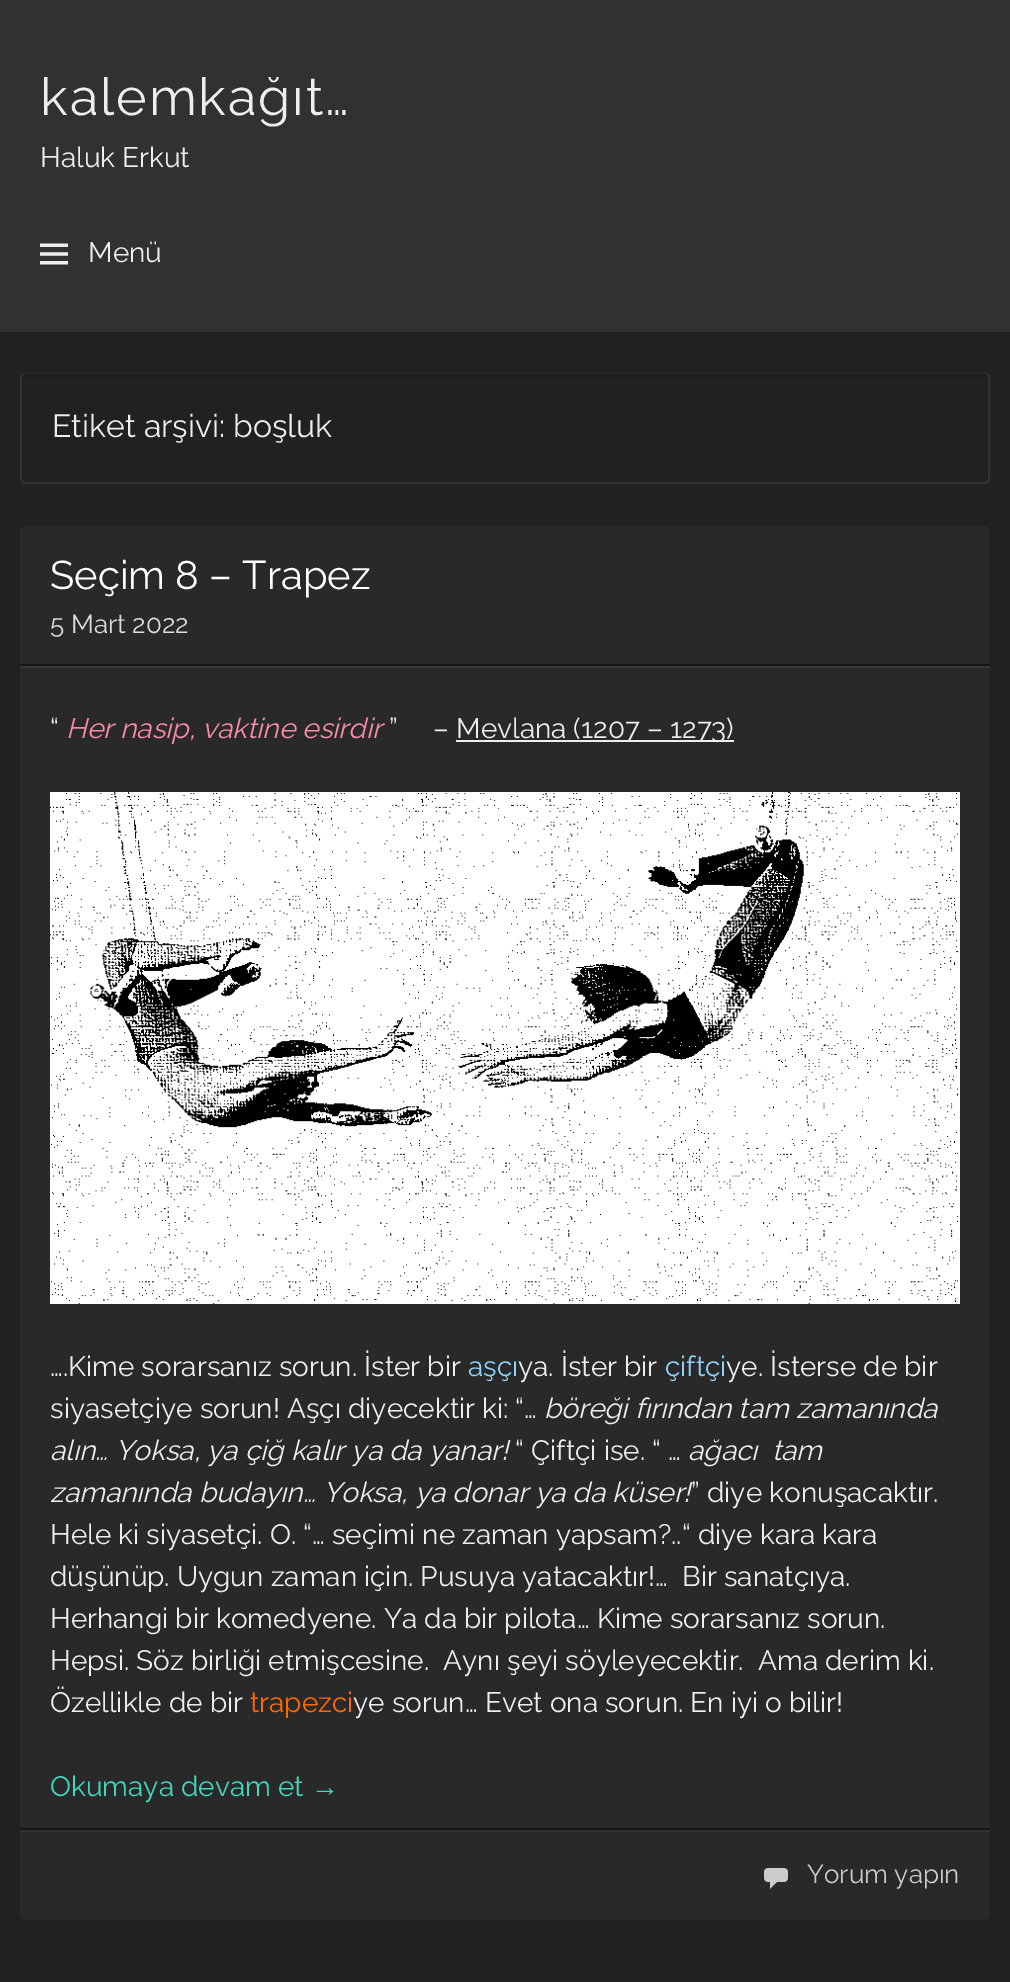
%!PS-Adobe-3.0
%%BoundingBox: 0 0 1010 1982
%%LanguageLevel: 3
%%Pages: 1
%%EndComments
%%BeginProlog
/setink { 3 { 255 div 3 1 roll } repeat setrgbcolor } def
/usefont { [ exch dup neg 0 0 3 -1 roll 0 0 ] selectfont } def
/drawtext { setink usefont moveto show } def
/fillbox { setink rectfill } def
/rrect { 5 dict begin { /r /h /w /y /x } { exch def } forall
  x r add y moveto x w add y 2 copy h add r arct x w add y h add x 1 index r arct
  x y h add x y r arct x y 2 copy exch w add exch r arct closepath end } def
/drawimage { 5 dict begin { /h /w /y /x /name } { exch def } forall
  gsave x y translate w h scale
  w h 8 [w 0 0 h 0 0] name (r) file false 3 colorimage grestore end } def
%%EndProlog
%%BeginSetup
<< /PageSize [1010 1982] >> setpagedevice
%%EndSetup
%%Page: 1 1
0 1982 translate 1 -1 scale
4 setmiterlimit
0 0 1010 1982 33 33 33 fillbox
0 0 1010 332 49 49 49 fillbox
/Raleway-Regular 52 usefont
238 238 238 setink
40 115 moveto 2 0 (kalemkağıt…) ashow
(Haluk Erkut) 40 167 /Raleway-Regular 28 238 238 238 drawtext
(assets/img1.rgb) 40 243 28 22 drawimage
(Menü) 88 262 /Raleway-Regular 28 238 238 238 drawtext
30 30 30 setink
26 378 moveto 984 378 lineto 985 378 986 379 986 380 curveto 986 480 lineto 986 481 985 482 984 482 curveto 986 482 988 480 988 478 curveto 988 378 lineto 988 376 986 374 984 374 curveto 26 374 lineto 24 374 22 376 22 378 curveto 22 478 lineto 22 480 24 482 26 482 curveto 25 482 24 481 24 480 curveto 24 380 lineto 24 379 25 378 26 378 curveto closepath fill
41 41 41 setink
2 setlinewidth
22.5 374.5 moveto 23.5 373.5 24.5 373 26 373 curveto 984 373 lineto 985.5 373 986.5 373.5 987.5 374.5 curveto stroke
51 51 51 setink
987.5 374.5 moveto 988.5 375.5 989 376.5 989 378 curveto 989 478 lineto 989 479.5 988.5 480.5 987.5 481.5 curveto 986.5 482.5 985.5 483 984 483 curveto 26 483 lineto 24.5 483 23.5 482.5 22.5 481.5 curveto 21.5 480.5 21 479.5 21 478 curveto 21 378 lineto 21 376.5 21.5 375.5 22.5 374.5 curveto stroke
(Etiket arşivi: boşluk) 52 437 /Raleway-Regular 32 238 238 238 drawtext
41 41 41 setink
20 526 970 1394 6 rrect fill
20 664 970 2 22 22 22 fillbox
(Seçim 8 – Trapez) 50 589 /Raleway-Regular 40 255 255 255 drawtext
(5 Mart 2022) 50 633 /Raleway-Regular 26 221 221 221 drawtext
20 666 970 2 54 54 54 fillbox
20 1828 970 2 22 22 22 fillbox
(“) 50 738 /Raleway-Regular 28 238 238 238 drawtext
(Her nasip, vaktine esirdir) 66 738 /Raleway-Italic 28 247 141 167 drawtext
(”     –) 389 738 /Raleway-Regular 28 238 238 238 drawtext
456 740 278 2 238 238 238 fillbox
(Mevlana \(1207 – 1273\)) 456 738 /Raleway-Regular 28 238 238 238 drawtext
(assets/img2.rgb) 50 792 910 512 drawimage
(….Kime sorarsanız sorun. İster bir) 50 1376 /Raleway-Regular 28 238 238 238 drawtext
(aşçı) 468 1376 /Raleway-Regular 28 142 209 252 drawtext
(ya. İster bir) 518 1376 /Raleway-Regular 28 238 238 238 drawtext
(çiftçi) 665 1376 /Raleway-Regular 28 142 209 252 drawtext
(ye. İsterse de bir) 726 1376 /Raleway-Regular 28 238 238 238 drawtext
(siyasetçiye sorun! Aşçı diyecektir ki: “…) 50 1418 /Raleway-Regular 28 238 238 238 drawtext
(böreği fırından tam zamanında) 544 1418 /Raleway-Italic 28 238 238 238 drawtext
(alın… Yoksa, ya çiğ kalır ya da yanar!) 50 1460 /Raleway-Italic 28 238 238 238 drawtext
(“ Çiftçi ise. “ …) 515 1460 /Raleway-Regular 28 238 238 238 drawtext
(ağacı  tam) 688 1460 /Raleway-Italic 28 238 238 238 drawtext
(zamanında budayın… Yoksa, ya donar ya da küser!) 50 1502 /Raleway-Italic 28 238 238 238 drawtext
(” diye konuşacaktır.) 691 1502 /Raleway-Regular 28 238 238 238 drawtext
(Hele ki siyasetçi. O. “… seçimi ne zaman yapsam?..“ diye kara kara) 50 1544 /Raleway-Regular 28 238 238 238 drawtext
(düşünüp. Uygun zaman için. Pusuya yatacaktır!…  Bir sanatçıya.) 50 1586 /Raleway-Regular 28 238 238 238 drawtext
(Herhangi bir komedyene. Ya da bir pilota… Kime sorarsanız sorun.) 50 1628 /Raleway-Regular 28 238 238 238 drawtext
(Hepsi. Söz birliği etmişcesine.  Aynı şeyi söyleyecektir.  Ama derim ki.) 50 1670 /Raleway-Regular 28 238 238 238 drawtext
(Özellikle de bir) 50 1712 /Raleway-Regular 28 238 238 238 drawtext
(trapezci) 250 1712 /Raleway-Regular 28 255 105 0 drawtext
(ye sorun… Evet ona sorun. En iyi o bilir!) 353 1712 /Raleway-Regular 28 238 238 238 drawtext
(Okumaya devam et) 50 1796 /Raleway-Regular 28 64 215 188 drawtext
(→) 311 1796 /LiberationSans-Regular 28 64 215 188 drawtext
20 1830 970 2 51 51 51 fillbox
(assets/img3.rgb) 764 1868 24 21 drawimage
(Yorum yapın) 807 1883 /Raleway-Regular 26 204 204 204 drawtext
showpage
%%EOF
